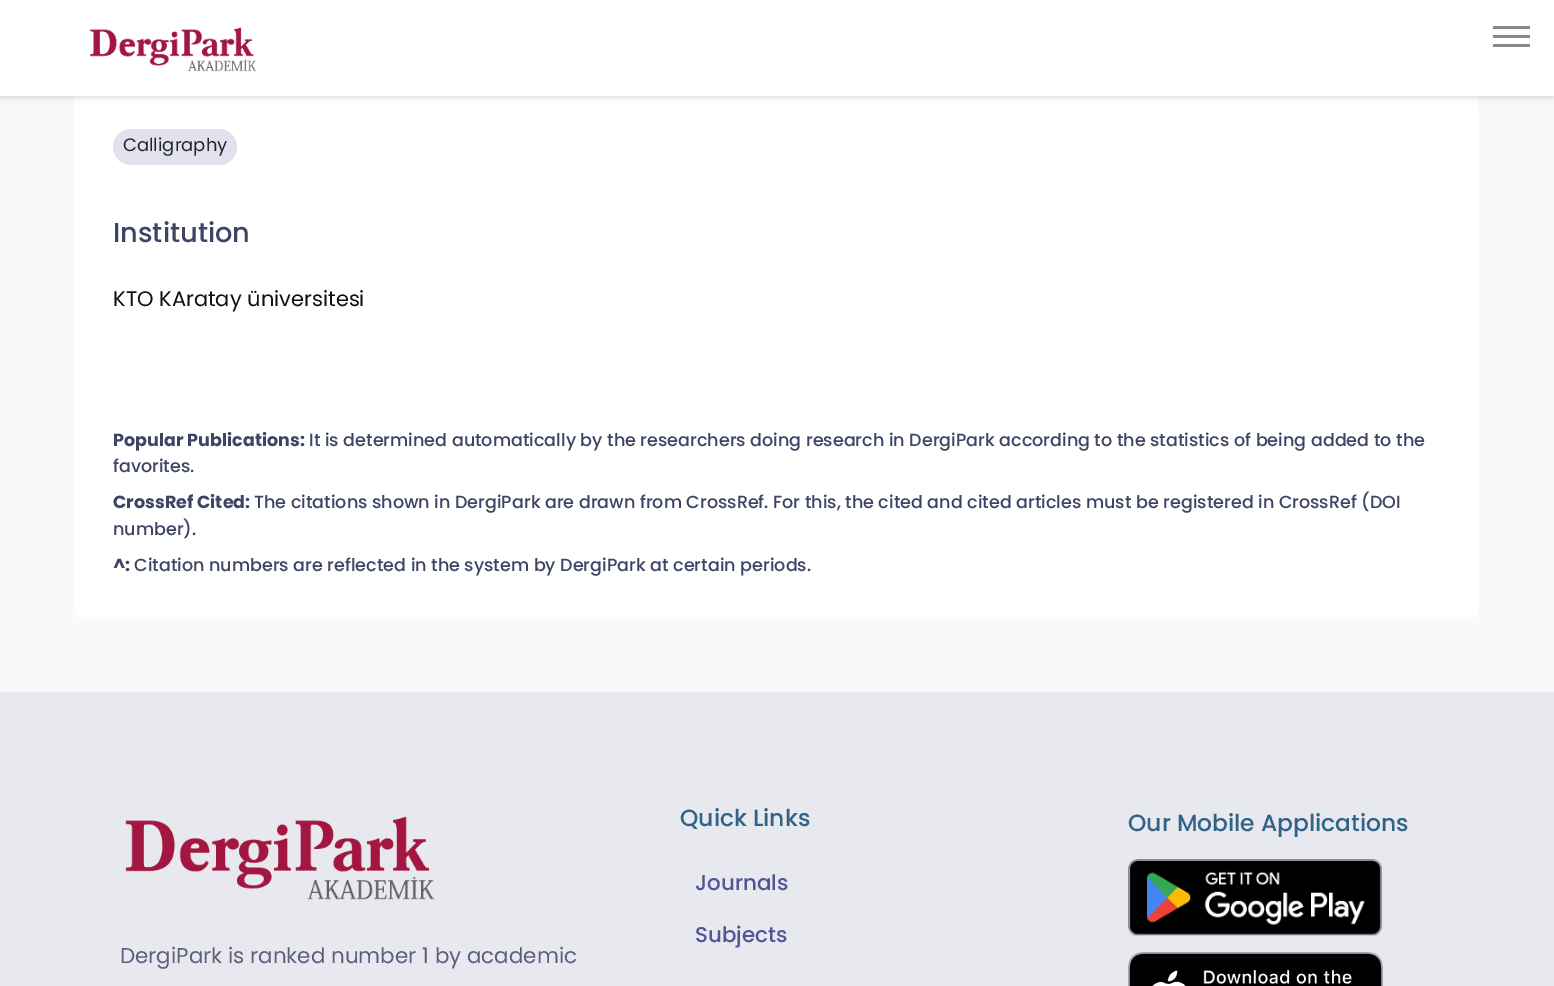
%!PS-Adobe-3.0
%%BoundingBox: 0 0 1554 986
%%LanguageLevel: 3
%%Pages: 1
%%EndComments
%%BeginProlog
/setink { 3 { 255 div 3 1 roll } repeat setrgbcolor } def
/usefont { [ exch dup neg 0 0 3 -1 roll 0 0 ] selectfont } def
/drawtext { setink usefont moveto show } def
/fillbox { setink rectfill } def
/setalpha { dup .setfillconstantalpha .setstrokeconstantalpha } def
/rrect { 5 dict begin { /r /h /w /y /x } { exch def } forall
  x r add y moveto x w add y 2 copy h add r arct x w add y h add x 1 index r arct
  x y h add x y r arct x y 2 copy exch w add exch r arct closepath end } def
/softshadow { 12 dict begin { /a /b /q /h /w /y /x } { exch def } forall gsave /was 0 def
  9 -2 -9 { dup b mul 4 div /e exch def 1 sub .425 mul 2.718 exch exp 1 add a .99 .min exch div /now exch def
    1 1 now sub 1 was sub div sub setalpha /was now def
    w h .min e 2 mul add 0 gt { x e sub y e sub w e 2 mul add h e 2 mul add
      q e add b .6 mul add w h .min 2 div e add .min 0 .max rrect fill } if } for grestore end } def
/drawimage { 5 dict begin { /h /w /y /x /name } { exch def } forall
  gsave x y translate w h scale
  w h 8 [w 0 0 h 0 0] name (r) file false 3 colorimage grestore end } def
%%EndProlog
%%BeginSetup
<< /PageSize [1554 986] /PageUsesTransparency true >> setpagedevice
%%EndSetup
%%Page: 1 1
0 .pushpdf14devicefilter
0 986 translate 1 -1 scale
4 setmiterlimit
0 0 1554 986 249 249 252 fillbox
255 255 255 setink
75 -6 1404 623 6 rrect fill
0 0 0 setink
0 0 1554 96 0 4 0.2 softshadow
0 0 1554 96 255 255 255 fillbox
(assets/img1.rgb) 89 27 168 45 drawimage
1493 26 37 3 136 136 136 fillbox
1493 35 37 3 136 136 136 fillbox
1493 44 37 3 136 136 136 fillbox
225 225 239 setink
113 129 124 36 18 rrect fill
(Calligraphy) 123 151 /Poppins-Regular 18 33 37 41 drawtext
(Institution) 113 242 /Poppins-Medium 27.25 61 68 101 drawtext
(KTO KAratay üniversitesi) 113 306 /Poppins-Regular 21 17 17 17 drawtext
(Popular Publications:) 113 446 /Poppins-Bold 17.55 61 68 101 drawtext
(It is determined automatically by the researchers doing research in DergiPark according to the statistics of being added to the) 309 446 /Poppins-Medium 17.55 61 68 101 drawtext
(favorites.) 113 472 /Poppins-Medium 17.55 61 68 101 drawtext
(CrossRef Cited:) 113 508 /Poppins-Bold 17.55 61 68 101 drawtext
(The citations shown in DergiPark are drawn from CrossRef. For this, the cited and cited articles must be registered in CrossRef \(DOI) 254 508 /Poppins-Medium 17.55 61 68 101 drawtext
(number\).) 113 535 /Poppins-Medium 17.55 61 68 101 drawtext
(^:) 113 571 /Poppins-Bold 17.55 61 68 101 drawtext
(Citation numbers are reflected in the system by DergiPark at certain periods.) 134 571 /Poppins-Medium 17.55 61 68 101 drawtext
0 692 1554 294 232 232 239 fillbox
(Quick Links) 680 826 /Poppins-Medium 23.4 49 99 135 drawtext
(Journals) 695 890 /Poppins-Medium 21.45 83 85 151 drawtext
(Subjects) 695 942 /Poppins-Medium 21.45 83 85 151 drawtext
(Our Mobile Applications) 1128 831 /Poppins-Medium 23.4 49 99 135 drawtext
(assets/img2.rgb) 1128 859 255 77 drawimage
(assets/img3.rgb) 1128 952 255 34 drawimage
(assets/img4.rgb) 125 816 310 84 drawimage
(DergiPark is ranked number 1 by academic) 120 963 /Poppins-Regular 21.45 93 94 125 drawtext
.poppdf14devicefilter showpage
%%EOF
